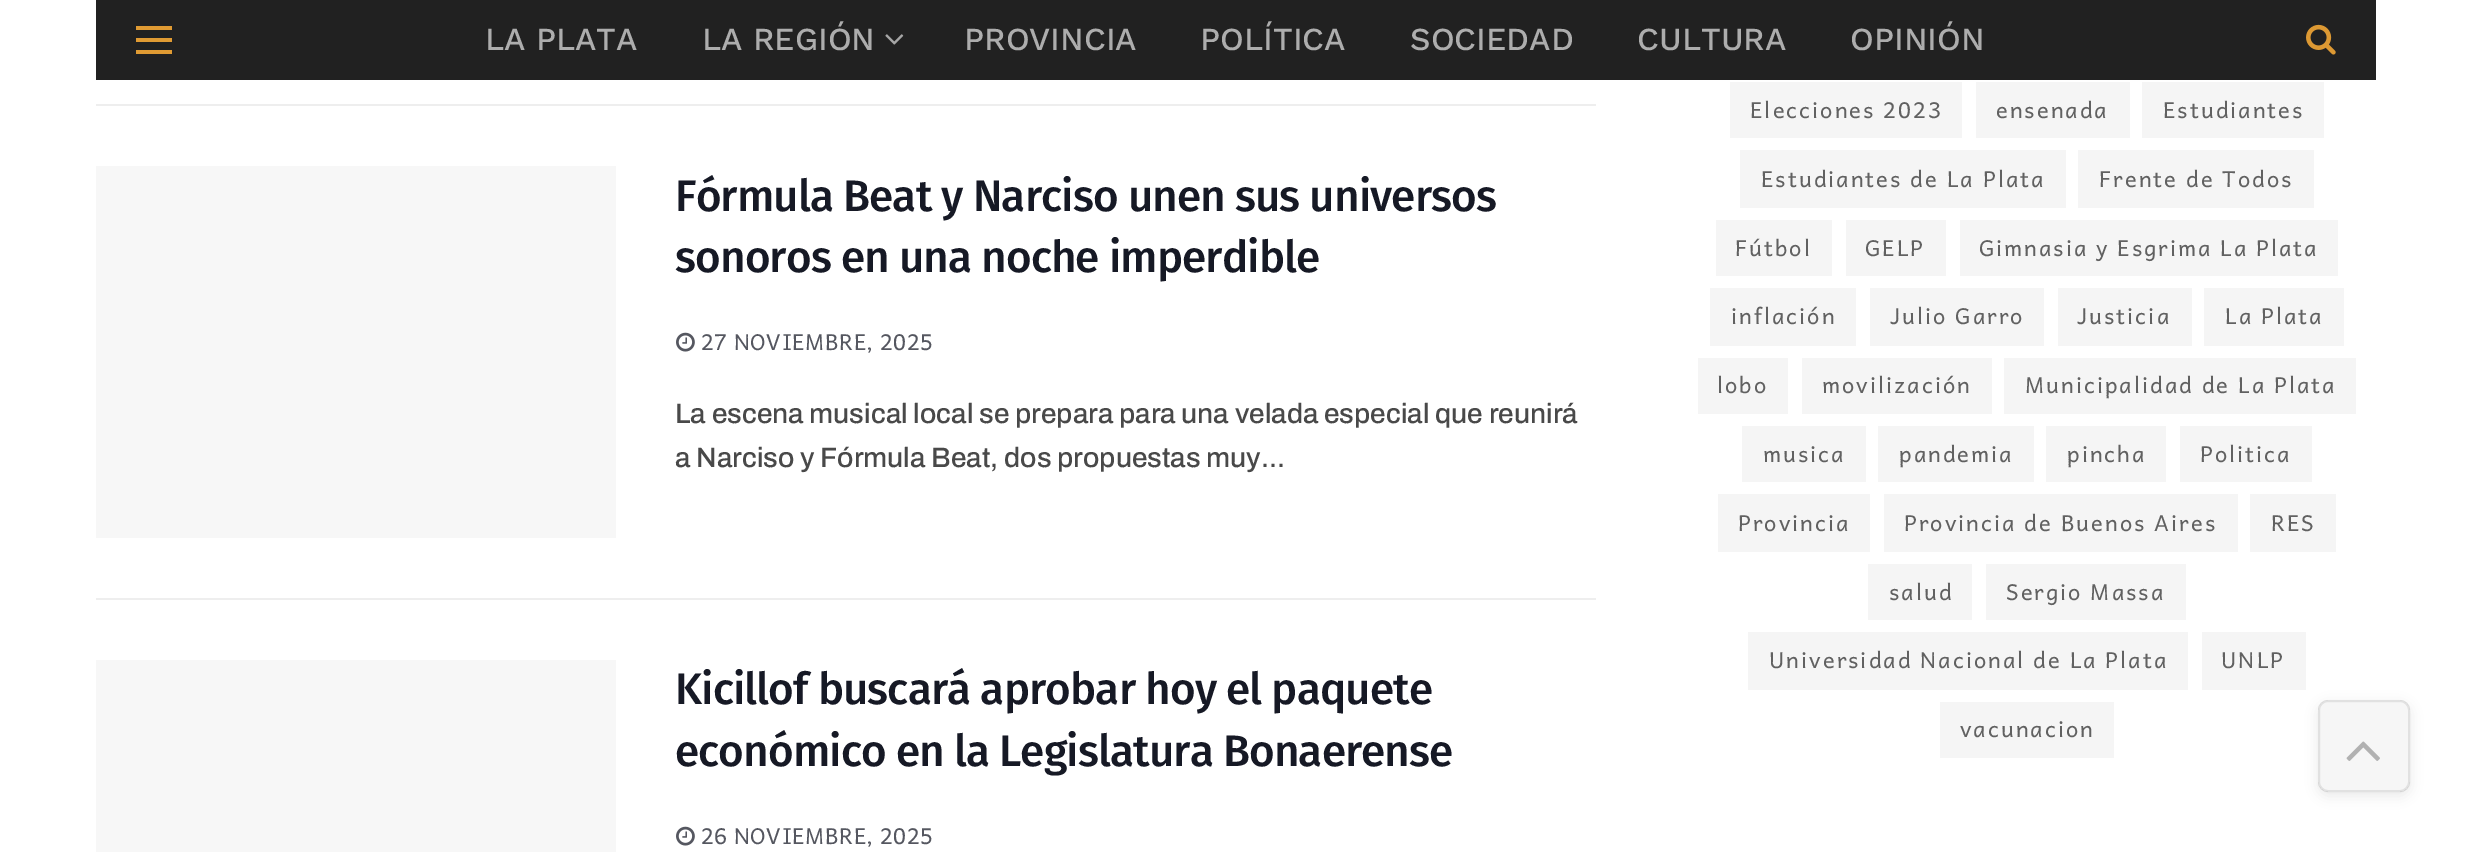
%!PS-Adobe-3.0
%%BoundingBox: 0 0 2470 852
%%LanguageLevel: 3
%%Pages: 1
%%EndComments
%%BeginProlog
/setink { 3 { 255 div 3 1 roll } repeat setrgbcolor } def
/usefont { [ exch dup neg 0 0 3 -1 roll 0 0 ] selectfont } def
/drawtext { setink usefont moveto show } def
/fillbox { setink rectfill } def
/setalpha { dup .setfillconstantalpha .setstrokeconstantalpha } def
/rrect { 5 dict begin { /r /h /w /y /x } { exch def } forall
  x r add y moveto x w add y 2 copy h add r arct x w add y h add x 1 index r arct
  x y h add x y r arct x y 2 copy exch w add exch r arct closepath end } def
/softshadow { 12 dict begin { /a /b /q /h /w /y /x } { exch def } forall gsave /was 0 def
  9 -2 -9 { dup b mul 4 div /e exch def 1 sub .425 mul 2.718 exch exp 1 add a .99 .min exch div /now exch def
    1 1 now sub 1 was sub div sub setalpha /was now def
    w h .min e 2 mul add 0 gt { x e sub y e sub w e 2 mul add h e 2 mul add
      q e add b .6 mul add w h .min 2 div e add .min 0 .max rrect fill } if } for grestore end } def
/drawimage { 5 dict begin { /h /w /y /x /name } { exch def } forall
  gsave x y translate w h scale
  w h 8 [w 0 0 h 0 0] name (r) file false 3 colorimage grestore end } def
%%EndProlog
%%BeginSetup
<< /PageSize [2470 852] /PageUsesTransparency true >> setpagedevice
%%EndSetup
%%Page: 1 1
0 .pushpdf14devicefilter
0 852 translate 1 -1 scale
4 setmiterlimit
0 0 2470 852 255 255 255 fillbox
96 0 2280 80 33 33 33 fillbox
136 26 36 4 224 155 51 fillbox
136 38 36 4 224 155 51 fillbox
136 50 36 4 224 155 51 fillbox
(LA PLATA) 485 50 /WorkSans-Medium 32 173 173 173 drawtext
(LA REGIÓN) 702 50 /WorkSans-Medium 32 173 173 173 drawtext
(assets/img1.rgb) 885 34 19 11 drawimage
(PROVINCIA) 964 50 /WorkSans-Medium 32 173 173 173 drawtext
(POLÍTICA) 1200 50 /WorkSans-Medium 32 173 173 173 drawtext
(SOCIEDAD) 1410 50 /WorkSans-Medium 32 173 173 173 drawtext
(CULTURA) 1637 50 /WorkSans-Medium 32 173 173 173 drawtext
(OPINIÓN) 1850 50 /WorkSans-Medium 32 173 173 173 drawtext
(assets/img2.rgb) 2306 24 30 31 drawimage
96 104 1500 2 238 238 238 fillbox
96 166 520 372 247 247 247 fillbox
/FiraSans-Medium 44 usefont
22 25 37 setink
675 211 moveto -0.9 0 (Fórmula Beat y Narciso unen sus universos) ashow
675 272 moveto -0.9 0 (sonoros en una noche imperdible) ashow
(assets/img3.rgb) 676 332 19 20 drawimage
/Andika-Regular 22 usefont
85 87 96 setink
701 350 moveto 0.4 0 (27 NOVIEMBRE, 2025) ashow
(La escena musical local se prepara para una velada especial que reunirá) 675 423 /Archivo-Medium 28 73 73 73 drawtext
(a Narciso y Fórmula Beat, dos propuestas muy...) 675 467 /Archivo-Medium 28 73 73 73 drawtext
96 598 1500 2 238 238 238 fillbox
96 660 520 192 247 247 247 fillbox
/FiraSans-Medium 44 usefont
22 25 37 setink
675 704 moveto -0.9 0 (Kicillof buscará aprobar hoy el paquete) ashow
675 766 moveto -0.9 0 (económico en la Legislatura Bonaerense) ashow
(assets/img3.rgb) 676 826 19 20 drawimage
/Andika-Regular 22 usefont
85 87 96 setink
701 844 moveto 0.4 0 (26 NOVIEMBRE, 2025) ashow
1730 82 232 56 245 245 245 fillbox
97 97 97 setink
1750 118 moveto 2 0 (Elecciones 2023) ashow
1976 82 154 56 245 245 245 fillbox
97 97 97 setink
1996 118 moveto 2 0 (ensenada) ashow
2142 82 182 56 245 245 245 fillbox
97 97 97 setink
2163 118 moveto 2 0 (Estudiantes) ashow
1740 150 326 58 245 245 245 fillbox
97 97 97 setink
1761 187 moveto 2 0 (Estudiantes de La Plata) ashow
2078 150 236 58 245 245 245 fillbox
97 97 97 setink
2099 187 moveto 2 0 (Frente de Todos) ashow
1716 220 116 56 245 245 245 fillbox
97 97 97 setink
1735 256 moveto 2 0 (Fútbol) ashow
1846 220 100 56 245 245 245 fillbox
97 97 97 setink
1865 256 moveto 2 0 (GELP) ashow
1960 220 378 56 245 245 245 fillbox
97 97 97 setink
1979 256 moveto 2 0 (Gimnasia y Esgrima La Plata) ashow
1710 288 146 58 245 245 245 fillbox
97 97 97 setink
1731 324 moveto 2 0 (inflación) ashow
1870 288 174 58 245 245 245 fillbox
97 97 97 setink
1890 324 moveto 2 0 (Julio Garro) ashow
2058 288 134 58 245 245 245 fillbox
97 97 97 setink
2077 324 moveto 2 0 (Justicia) ashow
2204 288 140 58 245 245 245 fillbox
97 97 97 setink
2225 324 moveto 2 0 (La Plata) ashow
1698 358 90 56 245 245 245 fillbox
97 97 97 setink
1717 393 moveto 2 0 (lobo) ashow
1802 358 190 56 245 245 245 fillbox
97 97 97 setink
1822 393 moveto 2 0 (movilización) ashow
2004 358 352 56 245 245 245 fillbox
97 97 97 setink
2025 393 moveto 2 0 (Municipalidad de La Plata) ashow
1742 426 124 56 245 245 245 fillbox
97 97 97 setink
1763 462 moveto 2 0 (musica) ashow
1878 426 156 56 245 245 245 fillbox
97 97 97 setink
1899 462 moveto 2 0 (pandemia) ashow
2046 426 120 56 245 245 245 fillbox
97 97 97 setink
2067 462 moveto 2 0 (pincha) ashow
2180 426 132 56 245 245 245 fillbox
97 97 97 setink
2200 462 moveto 2 0 (Politica) ashow
1718 494 152 58 245 245 245 fillbox
97 97 97 setink
1738 531 moveto 2 0 (Provincia) ashow
1884 494 354 58 245 245 245 fillbox
97 97 97 setink
1904 531 moveto 2 0 (Provincia de Buenos Aires) ashow
2250 494 86 58 245 245 245 fillbox
97 97 97 setink
2271 531 moveto 2 0 (RES) ashow
1868 564 104 56 245 245 245 fillbox
97 97 97 setink
1889 600 moveto 2 0 (salud) ashow
1986 564 200 56 245 245 245 fillbox
97 97 97 setink
2006 600 moveto 2 0 (Sergio Massa) ashow
1748 632 440 58 245 245 245 fillbox
97 97 97 setink
1769 668 moveto 2 0 (Universidad Nacional de La Plata) ashow
2202 632 104 58 245 245 245 fillbox
97 97 97 setink
2221 668 moveto 2 0 (UNLP) ashow
1940 702 174 56 245 245 245 fillbox
97 97 97 setink
1960 737 moveto 2 0 (vacunacion) ashow
gsave
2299 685 moveto 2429 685 lineto 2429 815 lineto 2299 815 lineto closepath 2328 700 moveto 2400 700 lineto 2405.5 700 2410 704.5 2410 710 curveto 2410 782 lineto 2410 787.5 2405.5 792 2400 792 curveto 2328 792 lineto 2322.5 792 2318 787.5 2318 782 curveto 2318 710 lineto 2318 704.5 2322.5 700 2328 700 curveto closepath eoclip newpath
51 51 51 setink
2318 704 92 92 10 6 0.1 softshadow
grestore
0.15 setalpha
196 196 196 setink
2318 700 92 92 10 rrect fill
0.11 setalpha
51 51 51 setink
2 setlinewidth
2319 701 90 90 9 rrect stroke
1 setalpha
(assets/img4.rgb) 2346 741 34 20 drawimage
.poppdf14devicefilter showpage
%%EOF
